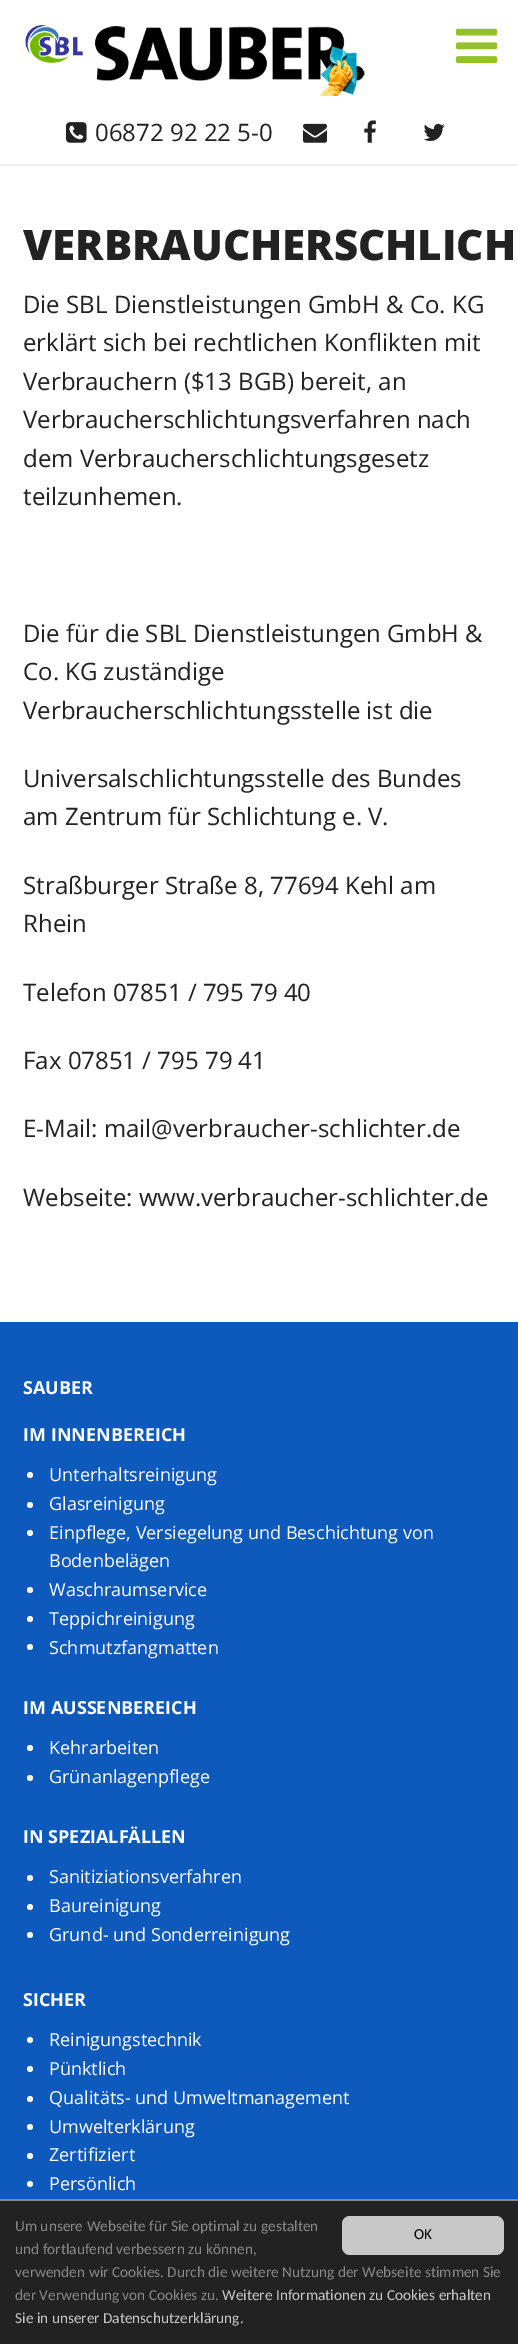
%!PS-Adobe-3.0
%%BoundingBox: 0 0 518 2344
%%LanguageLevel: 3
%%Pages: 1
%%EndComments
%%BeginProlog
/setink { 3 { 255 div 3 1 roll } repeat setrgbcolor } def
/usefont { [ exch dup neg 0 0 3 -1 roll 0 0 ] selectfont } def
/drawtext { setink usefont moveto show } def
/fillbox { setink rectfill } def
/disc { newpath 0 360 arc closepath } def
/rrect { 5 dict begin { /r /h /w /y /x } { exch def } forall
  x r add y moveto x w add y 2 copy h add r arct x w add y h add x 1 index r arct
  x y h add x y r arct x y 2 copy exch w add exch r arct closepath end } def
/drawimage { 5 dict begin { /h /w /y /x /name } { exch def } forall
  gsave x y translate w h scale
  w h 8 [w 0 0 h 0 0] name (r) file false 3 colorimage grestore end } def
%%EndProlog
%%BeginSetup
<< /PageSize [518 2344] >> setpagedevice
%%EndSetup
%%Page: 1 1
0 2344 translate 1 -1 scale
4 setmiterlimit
0 0 518 2344 255 255 255 fillbox
(assets/img1.rgb) 456 28 42 35 drawimage
0 164 518 2 238 238 238 fillbox
(assets/img2.rgb) 25 25 340 71 drawimage
(assets/img3.rgb) 66 122 21 21 drawimage
(06872 92 22 5-0) 95 141 /OpenSans-Regular 24 34 34 34 drawtext
(assets/img4.rgb) 303 123 24 20 drawimage
(assets/img5.rgb) 364 120 12 23 drawimage
(assets/img6.rgb) 423 123 22 18 drawimage
(VERBRAUCHERSCHLICH) 23 260 /OpenSans-ExtraBold 42 34 34 34 drawtext
(Die SBL Dienstleistungen GmbH & Co. KG) 23 313 /OpenSans-Regular 24 34 34 34 drawtext
(erklärt sich bei rechtlichen Konflikten mit) 23 351 /OpenSans-Regular 24 34 34 34 drawtext
(Verbrauchern \($13 BGB\) bereit, an) 23 390 /OpenSans-Regular 24 34 34 34 drawtext
(Verbraucherschlichtungsverfahren nach) 23 428 /OpenSans-Regular 24 34 34 34 drawtext
(dem Verbraucherschlichtungsgesetz) 23 467 /OpenSans-Regular 24 34 34 34 drawtext
(teilzunhemen.) 23 505 /OpenSans-Regular 24 34 34 34 drawtext
(Die für die SBL Dienstleistungen GmbH &) 23 642 /OpenSans-Regular 24 34 34 34 drawtext
(Co. KG zuständige) 23 680 /OpenSans-Regular 24 34 34 34 drawtext
(Verbraucherschlichtungsstelle ist die) 23 719 /OpenSans-Regular 24 34 34 34 drawtext
(Universalschlichtungsstelle des Bundes) 23 787 /OpenSans-Regular 24 34 34 34 drawtext
(am Zentrum für Schlichtung e. V.) 23 825 /OpenSans-Regular 24 34 34 34 drawtext
(Straßburger Straße 8, 77694 Kehl am) 23 894 /OpenSans-Regular 24 34 34 34 drawtext
(Rhein) 23 932 /OpenSans-Regular 24 34 34 34 drawtext
(Telefon 07851 / 795 79 40) 23 1001 /OpenSans-Regular 24 34 34 34 drawtext
(Fax 07851 / 795 79 41) 23 1069 /OpenSans-Regular 24 34 34 34 drawtext
(E-Mail: mail@verbraucher-schlichter.de) 23 1137 /OpenSans-Regular 24 34 34 34 drawtext
(Webseite: www.verbraucher-schlichter.de) 23 1206 /OpenSans-Regular 24 34 34 34 drawtext
0 1322 518 877 13 89 188 fillbox
(SAUBER) 23 1394 /OpenSans-Bold 18 255 255 255 drawtext
(IM INNENBEREICH) 23 1441 /OpenSans-Bold 18 255 255 255 drawtext
30 1475 3 disc fill
(Unterhaltsreinigung) 49 1481 /OpenSans-Regular 18 255 255 255 drawtext
30 1505 3 disc fill
(Glasreinigung) 49 1510 /OpenSans-Regular 18 255 255 255 drawtext
30 1533 3 disc fill
(Einpflege, Versiegelung und Beschichtung von) 49 1539 /OpenSans-Regular 18 255 255 255 drawtext
(Bodenbelägen) 49 1567 /OpenSans-Regular 18 255 255 255 drawtext
30 1590 3 disc fill
(Waschraumservice) 49 1596 /OpenSans-Regular 18 255 255 255 drawtext
30 1619 3 disc fill
(Teppichreinigung) 49 1625 /OpenSans-Regular 18 255 255 255 drawtext
30 1647 3 disc fill
(Schmutzfangmatten) 49 1654 /OpenSans-Regular 18 255 255 255 drawtext
(IM AUSSENBEREICH) 23 1714 /OpenSans-Bold 18 255 255 255 drawtext
30 1748 3 disc fill
(Kehrarbeiten) 49 1754 /OpenSans-Regular 18 255 255 255 drawtext
30 1778 3 disc fill
(Grünanlagenpflege) 49 1783 /OpenSans-Regular 18 255 255 255 drawtext
(IN SPEZIALFÄLLEN) 23 1843 /OpenSans-Bold 18 255 255 255 drawtext
30 1878 3 disc fill
(Sanitiziationsverfahren) 49 1883 /OpenSans-Regular 18 255 255 255 drawtext
30 1907 3 disc fill
(Baureinigung) 49 1912 /OpenSans-Regular 18 255 255 255 drawtext
30 1935 3 disc fill
(Grund- und Sonderreinigung) 49 1941 /OpenSans-Regular 18 255 255 255 drawtext
(SICHER) 23 2006 /OpenSans-Bold 18 255 255 255 drawtext
30 2040 3 disc fill
(Reinigungstechnik) 49 2046 /OpenSans-Regular 18 255 255 255 drawtext
30 2069 3 disc fill
(Pünktlich) 49 2075 /OpenSans-Regular 18 255 255 255 drawtext
30 2099 3 disc fill
(Qualitäts- und Umweltmanagement) 49 2104 /OpenSans-Regular 18 255 255 255 drawtext
30 2127 3 disc fill
(Umwelterklärung) 49 2133 /OpenSans-Regular 18 255 255 255 drawtext
30 2156 3 disc fill
(Zertifiziert) 49 2161 /OpenSans-Regular 18 255 255 255 drawtext
30 2184 3 disc fill
(Persönlich) 49 2190 /OpenSans-Regular 18 255 255 255 drawtext
0 2201 518 143 34 34 34 fillbox
0 2199 518 2 136 136 136 fillbox
(Um unsere Webseite für Sie optimal zu gestalten) 15 2231 /Carlito-Regular 15.3 136 136 136 drawtext
(und fortlaufend verbessern zu können,) 15 2254 /Carlito-Regular 15.3 136 136 136 drawtext
(verwenden wir Cookies. Durch die weitere Nutzung der Webseite stimmen Sie) 15 2277 /Carlito-Regular 15.3 136 136 136 drawtext
(der Verwendung von Cookies zu.) 15 2300 /Carlito-Regular 15.3 136 136 136 drawtext
(Weitere Informationen zu Cookies erhalten) 222 2300 /Carlito-Regular 15.3 200 200 200 drawtext
(Sie in unserer Datenschutzerklärung.) 15 2323 /Carlito-Regular 15.3 200 200 200 drawtext
342 2216 162 39 8 rrect fill
(OK) 414 2239 /Carlito-Regular 15.3 0 0 0 drawtext
showpage
%%EOF
